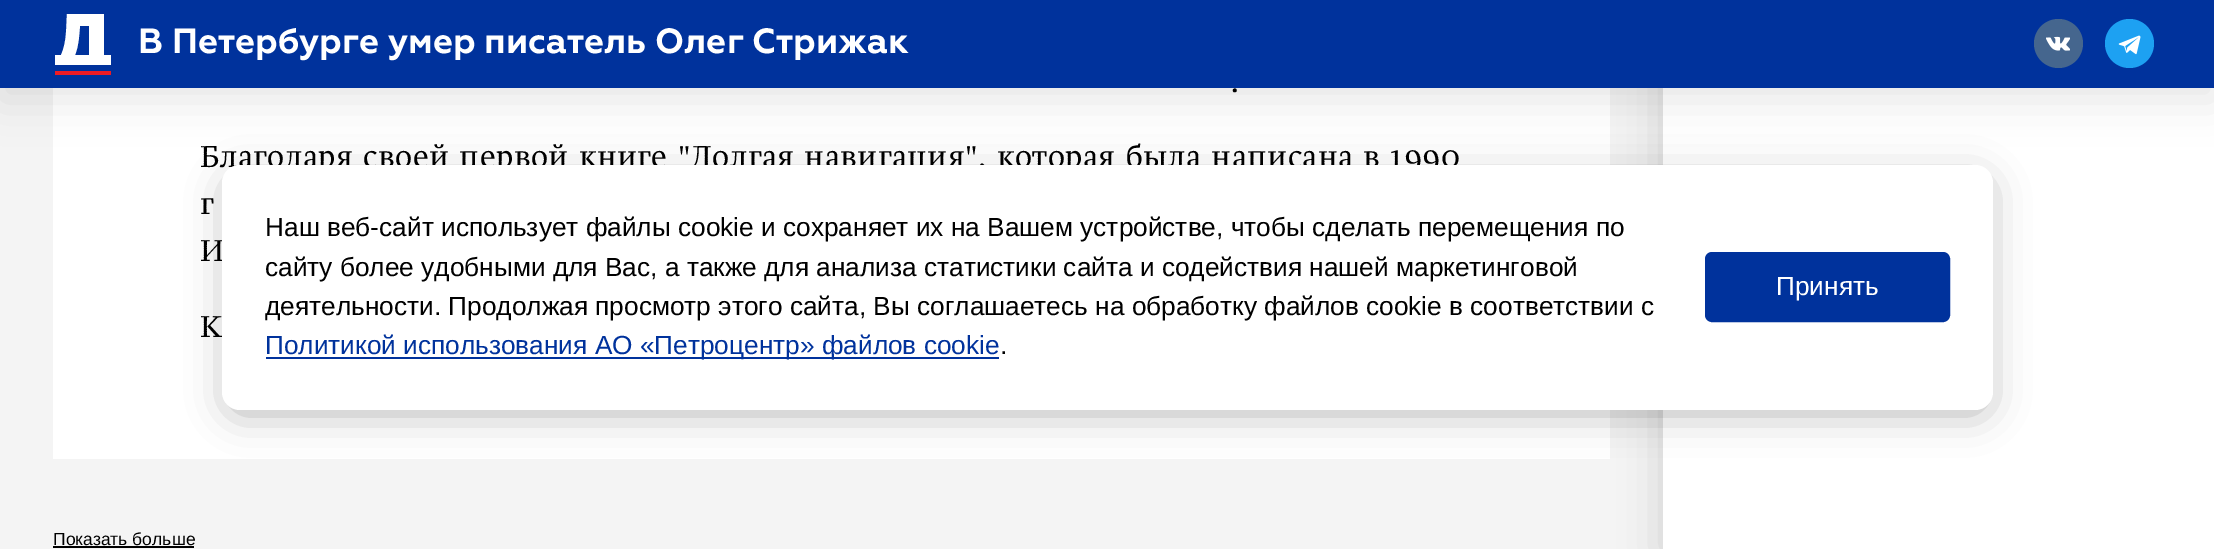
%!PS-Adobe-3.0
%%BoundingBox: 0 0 2214 549
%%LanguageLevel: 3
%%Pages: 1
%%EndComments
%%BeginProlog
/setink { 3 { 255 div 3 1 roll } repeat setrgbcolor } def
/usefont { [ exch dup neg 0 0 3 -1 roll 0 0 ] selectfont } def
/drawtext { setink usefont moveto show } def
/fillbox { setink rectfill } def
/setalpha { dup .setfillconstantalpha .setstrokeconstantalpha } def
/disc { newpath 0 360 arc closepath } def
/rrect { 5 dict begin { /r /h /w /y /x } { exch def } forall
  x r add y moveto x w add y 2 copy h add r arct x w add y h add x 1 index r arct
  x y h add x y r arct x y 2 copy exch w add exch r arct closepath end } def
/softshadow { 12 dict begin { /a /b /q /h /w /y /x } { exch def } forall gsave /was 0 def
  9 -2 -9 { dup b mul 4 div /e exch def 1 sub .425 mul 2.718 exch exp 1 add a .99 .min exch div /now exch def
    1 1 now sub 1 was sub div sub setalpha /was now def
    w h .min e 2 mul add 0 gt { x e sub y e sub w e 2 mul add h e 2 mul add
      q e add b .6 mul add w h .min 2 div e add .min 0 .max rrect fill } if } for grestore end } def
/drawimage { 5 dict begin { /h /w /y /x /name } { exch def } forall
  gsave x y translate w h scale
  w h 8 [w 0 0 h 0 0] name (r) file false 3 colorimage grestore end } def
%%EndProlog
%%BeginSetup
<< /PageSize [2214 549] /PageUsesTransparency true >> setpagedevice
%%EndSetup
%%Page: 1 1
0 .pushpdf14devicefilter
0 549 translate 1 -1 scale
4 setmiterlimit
0 0 2214 549 244 244 244 fillbox
53 88 1557 371 255 255 255 fillbox
0 0 0 setink
1663 -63 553 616 0 21 0.15 softshadow
1663 88 551 461 255 255 255 fillbox
0 0 0 setink
0 12 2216 88 0 21 0.1 softshadow
0 0 2214 88 0 50 156 fillbox
255 255 255 setink
89 55 moveto 75 55 lineto 79 45 79 36 80 26 curveto 89 26 lineto closepath 104 55 moveto 104 14 lineto 67 14 lineto 66 27 67 42 61 55 curveto 55 55 lineto 55 65 lineto 111 65 lineto 111 55 lineto closepath fill
55 71 56 4 237 28 36 fillbox
(В Петербурге умер писатель Олег Стрижак) 138 53 /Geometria-Bold 35 255 255 255 drawtext
69 102 142 setink
2058.5 43.5 24.5 disc fill
(assets/img1.rgb) 2046 36 24 15 drawimage
29 161 242 setink
2129.5 43.5 24.5 disc fill
(assets/img2.rgb) 2118 35 23 20 drawimage
/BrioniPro-Light 31.5 usefont
0 0 0 setink
1231 92 moveto 0.53 0 (.) ashow
200 167 moveto 3 0 32 0.53 0 (Благодаря своей первой книге "Долгая навигация", которая была написана в 1990) awidthshow
200 214 moveto 0.53 0 (г) ashow
200 261 moveto 0.53 0 (И) ashow
200 337 moveto 0.53 0 (К) ashow
(Показать больше) 53 545 /LiberationSans-Regular 17.5 0 0 0 drawtext
53 546 141 2 0 0 0 fillbox
228 179 1760 234 12 20 0.3 softshadow
255 255 255 setink
222 165 1771 245 18 rrect fill
(Наш веб-сайт использует файлы cookie и сохраняет их на Вашем устройстве, чтобы сделать перемещения по) 265 236 /LiberationSans-Regular 26.25 0 0 0 drawtext
(сайту более удобными для Вас, а также для анализа статистики сайта и содействия нашей маркетинговой) 265 276 /LiberationSans-Regular 26.25 0 0 0 drawtext
(деятельности. Продолжая просмотр этого сайта, Вы соглашаетесь на обработку файлов cookie в соответствии с) 265 315 /LiberationSans-Regular 26.25 0 0 0 drawtext
266 357 733 2 0 50 156 fillbox
(Политикой использования АО «Петроцентр» файлов cookie) 265 354 /LiberationSans-Regular 26.25 0 50 156 drawtext
(.) 1000 354 /LiberationSans-Regular 26.25 0 0 0 drawtext
0 50 156 setink
1706 253 243 68 6 rrect gsave fill grestore
2 setlinewidth
stroke
(Принять) 1776 295 /LiberationSans-Regular 26.25 255 255 255 drawtext
.poppdf14devicefilter showpage
%%EOF
